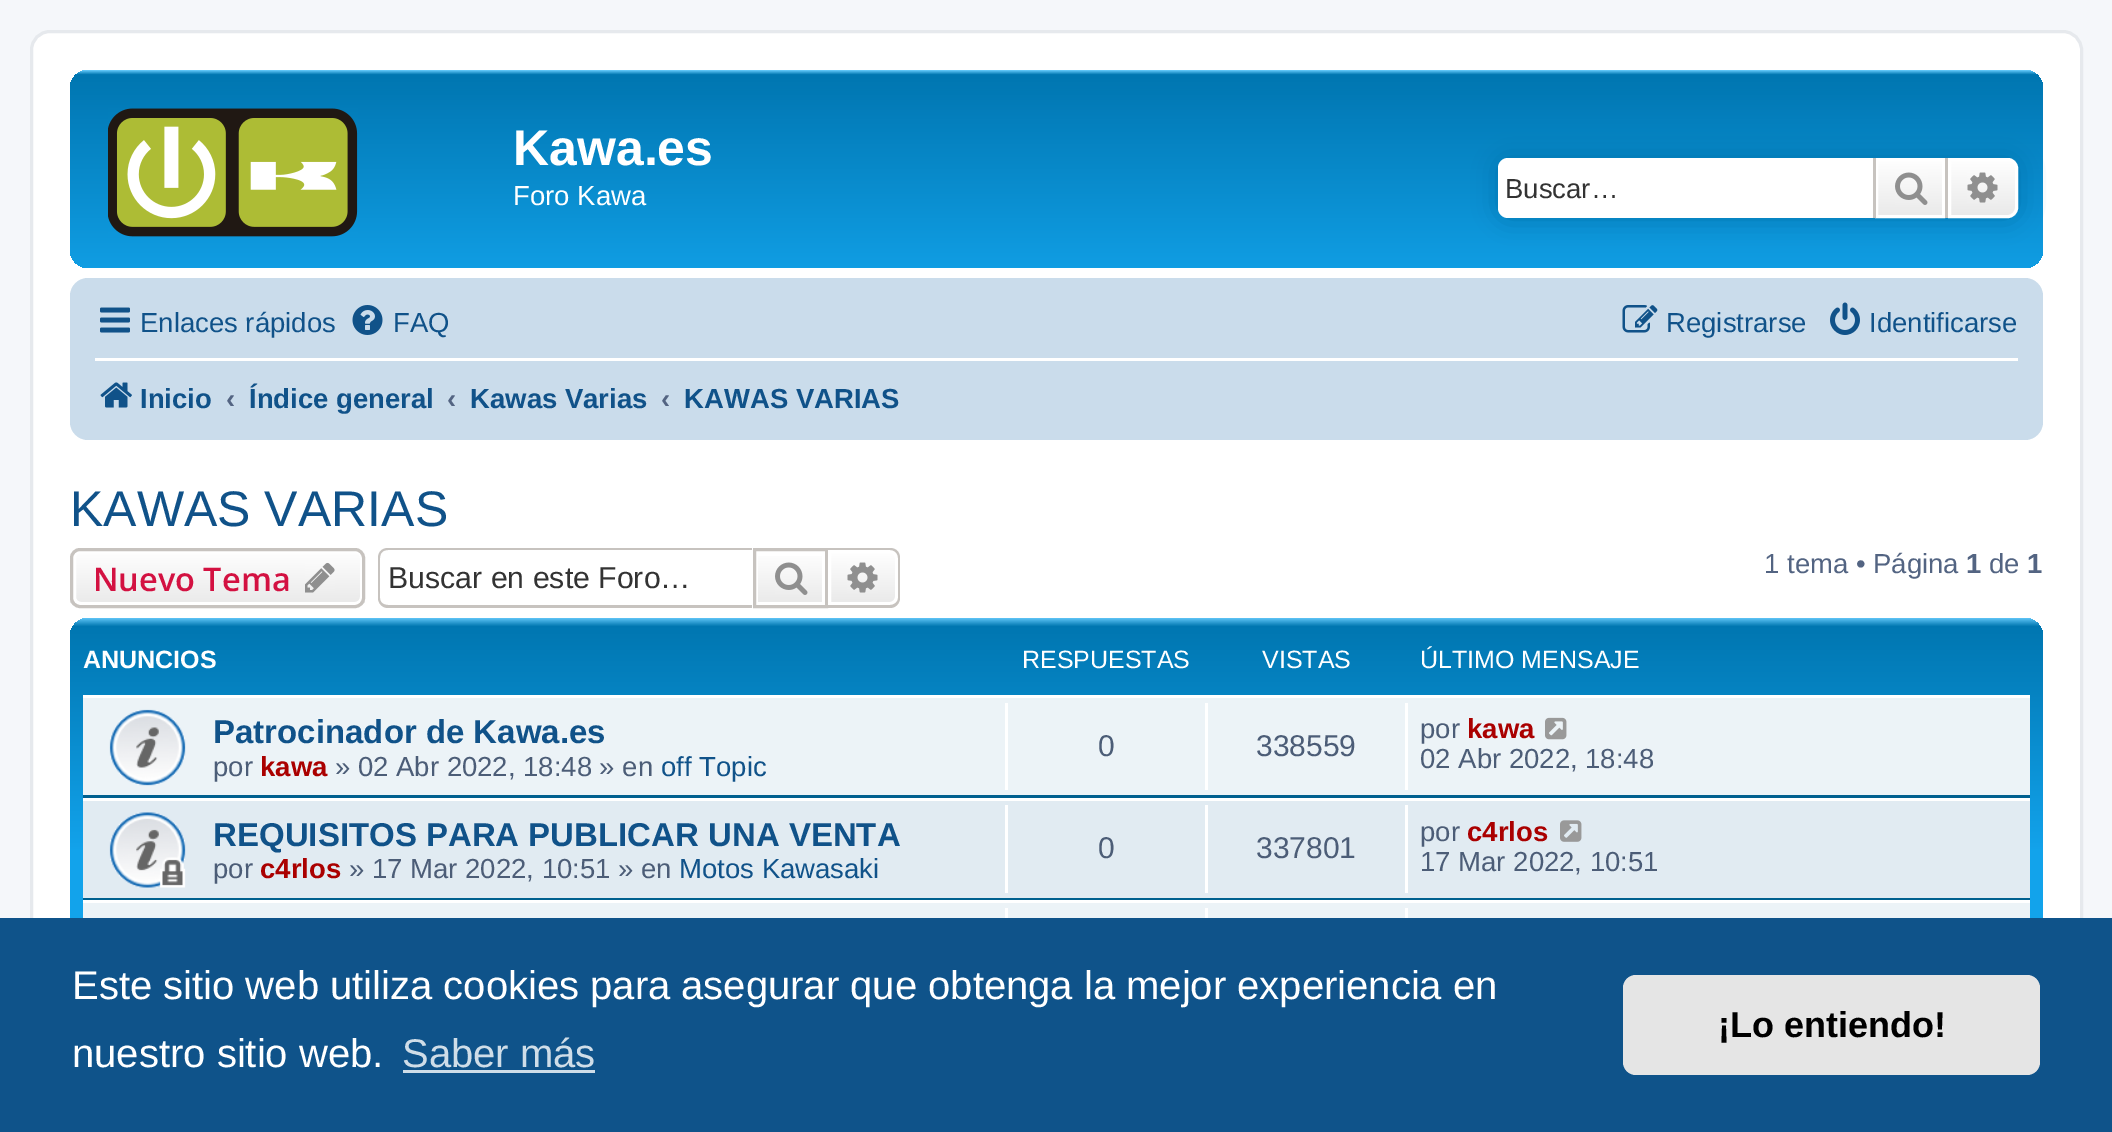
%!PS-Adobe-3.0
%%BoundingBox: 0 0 2112 1132
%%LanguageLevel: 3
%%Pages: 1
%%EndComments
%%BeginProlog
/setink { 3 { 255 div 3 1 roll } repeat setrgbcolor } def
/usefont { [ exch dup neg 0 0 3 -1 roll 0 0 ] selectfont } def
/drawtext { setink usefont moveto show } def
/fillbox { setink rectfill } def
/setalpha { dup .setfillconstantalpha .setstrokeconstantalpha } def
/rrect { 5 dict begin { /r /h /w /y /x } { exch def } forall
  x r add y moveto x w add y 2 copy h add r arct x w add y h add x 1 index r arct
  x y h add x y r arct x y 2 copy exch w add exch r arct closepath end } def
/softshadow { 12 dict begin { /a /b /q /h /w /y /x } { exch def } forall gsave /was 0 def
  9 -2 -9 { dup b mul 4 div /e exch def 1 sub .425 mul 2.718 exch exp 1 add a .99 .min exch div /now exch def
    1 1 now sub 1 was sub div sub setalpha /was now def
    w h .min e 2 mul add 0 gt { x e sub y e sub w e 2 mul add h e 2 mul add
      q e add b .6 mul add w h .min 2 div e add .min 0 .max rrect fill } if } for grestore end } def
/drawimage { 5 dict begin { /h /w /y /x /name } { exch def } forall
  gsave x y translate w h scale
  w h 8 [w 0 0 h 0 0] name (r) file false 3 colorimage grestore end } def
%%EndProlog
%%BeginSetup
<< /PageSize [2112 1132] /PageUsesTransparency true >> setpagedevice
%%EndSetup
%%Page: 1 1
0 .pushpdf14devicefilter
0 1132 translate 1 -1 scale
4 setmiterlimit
0 0 2112 1132 245 247 250 fillbox
255 255 255 setink
31.5 31.5 2050 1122 18.5 rrect gsave fill grestore
230 233 237 setink
3 setlinewidth
stroke
gsave 70 70 1973 198 18 rrect clip newpath
<< /ShadingType 2 /ColorSpace /DeviceRGB /Coords [1056 70 1056 300] /Extend [true true] /Function << /FunctionType 3 /Domain [0 1] /Functions [<< /FunctionType 2 /Domain [0 1] /C0 [0.416 0.808 1] /C1 [0 0.463 0.694] /N 1 >> << /FunctionType 2 /Domain [0 1] /C0 [0 0.463 0.694] /C1 [0.071 0.639 0.922] /N 1 >>] /Bounds [0.02] /Encode [0 1 0 1] >> >> shfill grestore
(assets/img1.rgb) 108 108 250 129 drawimage
(Kawa.es) 513 165 /LiberationSans-Bold 50 255 255 255 drawtext
(Foro Kawa) 513 205 /LiberationSans-Regular 27.5 255 255 255 drawtext
0 117 176 setink
1498 158 520 60 10 12.5 1 softshadow
255 255 255 setink
1508 158 moveto 1873 158 lineto 1873 218 lineto 1508 218 lineto 1502.5 218 1498 213.5 1498 208 curveto 1498 168 lineto 1498 162.5 1502.5 158 1508 158 curveto closepath fill
(Buscar…) 1505 198 /LiberationSans-Regular 27.5 51 51 51 drawtext
gsave 1878 161 moveto 1942 161 lineto 1942 215 lineto 1878 215 lineto closepath clip newpath
<< /ShadingType 2 /ColorSpace /DeviceRGB /Coords [1910 158 1910 218] /Extend [true true] /Function << /FunctionType 2 /Domain [0 1] /C0 [1 1 1] /C1 [0.914 0.914 0.914] /N 1 >> >> shfill grestore
255 255 255 setink
1876.5 159.5 67 57 rectstroke
1945 158 3 60 199 195 191 fillbox
1873 158 3 60 199 195 191 fillbox
(assets/img2.rgb) 1895 172 33 33 drawimage
gsave 1949.5 159.5 moveto 2008 159.5 lineto 2012.5 159.5 2016.5 163.5 2016.5 168 curveto 2016.5 208 lineto 2016.5 212.5 2012.5 216.5 2008 216.5 curveto 1949.5 216.5 lineto closepath clip newpath
<< /ShadingType 2 /ColorSpace /DeviceRGB /Coords [1983 158 1983 218] /Extend [true true] /Function << /FunctionType 2 /Domain [0 1] /C0 [1 1 1] /C1 [0.914 0.914 0.914] /N 1 >> >> shfill grestore
255 255 255 setink
1949.5 159.5 moveto 2008 159.5 lineto 2012.5 159.5 2016.5 163.5 2016.5 168 curveto 2016.5 208 lineto 2016.5 212.5 2012.5 216.5 2008 216.5 curveto 1949.5 216.5 lineto closepath stroke
(assets/img3.rgb) 1967 172 31 31 drawimage
202 220 235 setink
70 278 1973 162 18 rrect fill
(assets/img4.rgb) 100 307 30 26 drawimage
(Enlaces rápidos) 140 332 /LiberationSans-Regular 27.5 16 82 137 drawtext
(assets/img5.rgb) 352 305 31 30 drawimage
(FAQ) 393 332 /LiberationSans-Regular 27.5 16 82 137 drawtext
(assets/img6.rgb) 1622 305 36 28 drawimage
(Registrarse) 1666 332 /LiberationSans-Regular 27.5 16 82 137 drawtext
(assets/img7.rgb) 1830 302 30 33 drawimage
(Identificarse) 1869 332 /LiberationSans-Regular 27.5 16 82 137 drawtext
95 358 1923 3 255 255 255 fillbox
(assets/img8.rgb) 100 382 32 26 drawimage
(Inicio) 140 408 /LiberationSans-Bold 27.5 16 82 137 drawtext
(‹) 226 408 /LiberationSans-Bold 27.5 83 100 130 drawtext
(Índice general) 249 408 /LiberationSans-Bold 27.5 16 82 137 drawtext
(‹) 447 408 /LiberationSans-Bold 27.5 83 100 130 drawtext
(Kawas Varias) 470 408 /LiberationSans-Bold 27.5 16 82 137 drawtext
(‹) 661 408 /LiberationSans-Bold 27.5 83 100 130 drawtext
(KAWAS VARIAS) 684 408 /LiberationSans-Bold 27.5 16 82 137 drawtext
(KAWAS VARIAS) 70 526 /LiberationSans-Regular 50 16 82 137 drawtext
gsave
70 548 295 60 10 rrect clip newpath
gsave 70 550 moveto 365 550 lineto 365 605 lineto 70 605 lineto closepath clip newpath
<< /ShadingType 2 /ColorSpace /DeviceRGB /Coords [218 550 218 605] /Extend [true true] /Function << /FunctionType 2 /Domain [0 1] /C0 [1 1 1] /C1 [0.914 0.914 0.914] /N 1 >> >> shfill grestore
grestore
255 255 255 setink
74.5 551.5 287 52 6.5 rrect stroke
199 195 191 setink
71.5 549.5 292 57 8.5 rrect stroke
(Nuevo Tema) 93 591 /OpenSans-SemiBold 32.5 211 17 65 drawtext
(assets/img9.rgb) 305 562 30 31 drawimage
199 195 191 setink
388 548 moveto 752 548 lineto 752 608 lineto 388 608 lineto 382 608 378 603 378 598 curveto 378 558 lineto 378 552 382 548 388 548 curveto closepath 388 550 moveto 752 550 lineto 752 605 lineto 388 605 lineto 383 605 380 602 380 598 curveto 380 558 lineto 380 553 383 550 388 550 curveto closepath eofill
(Buscar en este Foro…) 388 588 /LiberationSans-Regular 30.25 51 51 51 drawtext
gsave 758 556 moveto 822 556 lineto 822 602 lineto 758 602 lineto closepath clip newpath
<< /ShadingType 2 /ColorSpace /DeviceRGB /Coords [790 550 790 605] /Extend [true true] /Function << /FunctionType 2 /Domain [0 1] /C0 [1 1 1] /C1 [0.914 0.914 0.914] /N 1 >> >> shfill grestore
199 195 191 setink
754.5 549.5 72 57 rectstroke
(assets/img10.rgb) 775 562 33 33 drawimage
gsave 829.5 551.5 moveto 890 551.5 lineto 893.5 551.5 896.5 554.5 896.5 558 curveto 896.5 597 lineto 896.5 600.5 893.5 603.5 890 603.5 curveto 829.5 603.5 lineto closepath clip newpath
<< /ShadingType 2 /ColorSpace /DeviceRGB /Coords [863 550 863 605] /Extend [true true] /Function << /FunctionType 2 /Domain [0 1] /C0 [1 1 1] /C1 [0.914 0.914 0.914] /N 1 >> >> shfill grestore
255 255 255 setink
829.5 551.5 moveto 890 551.5 lineto 893.5 551.5 896.5 554.5 896.5 558 curveto 896.5 597 lineto 896.5 600.5 893.5 603.5 890 603.5 curveto 829.5 603.5 lineto closepath stroke
199 195 191 setink
828 548 moveto 890 548 lineto 896 548 900 552 900 558 curveto 900 598 lineto 900 603 896 608 890 608 curveto 828 608 lineto closepath 828 550 moveto 890 550 lineto 894 550 898 553 898 558 curveto 898 598 lineto 898 602 894 605 890 605 curveto 828 605 lineto closepath eofill
(assets/img11.rgb) 847 562 31 31 drawimage
(1 tema • Página) 1764 573 /LiberationSans-Regular 27.5 83 100 130 drawtext
(1) 1966 573 /LiberationSans-Bold 27.5 83 100 130 drawtext
(de) 1989 573 /LiberationSans-Regular 27.5 83 100 130 drawtext
(1) 2027 573 /LiberationSans-Bold 27.5 83 100 130 drawtext
gsave 70 618 1973 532 18 rrect clip newpath
<< /ShadingType 2 /ColorSpace /DeviceRGB /Coords [1056 617 1056 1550] /Extend [true true] /Function << /FunctionType 3 /Domain [0 1] /Functions [<< /FunctionType 2 /Domain [0 1] /C0 [0.416 0.808 1] /C1 [0 0.463 0.694] /N 1 >> << /FunctionType 2 /Domain [0 1] /C0 [0 0.463 0.694] /C1 [0.071 0.639 0.922] /N 1 >> << /FunctionType 2 /Domain [0 1] /C0 [0.071 0.639 0.922] /C1 [0.071 0.639 0.922] /N 1 >>] /Bounds [0.01 0.25] /Encode [0 1 0 1 0 1] >> >> shfill grestore
(ANUNCIOS) 83 668 /LiberationSans-Bold 25 255 255 255 drawtext
(RESPUESTAS) 1022 668 /LiberationSans-Regular 25 255 255 255 drawtext
(VISTAS) 1262 668 /LiberationSans-Regular 25 255 255 255 drawtext
(ÚLTIMO MENSAJE) 1420 668 /LiberationSans-Regular 25 255 255 255 drawtext
83 698 1947 97 236 243 247 fillbox
83 695 1947 3 255 255 255 fillbox
83 795 1947 3 0 96 143 fillbox
(assets/img12.rgb) 109 709 77 77 drawimage
(Patrocinador de Kawa.es) 213 743 /LiberationSans-Bold 33 16 82 137 drawtext
(por) 213 776 /LiberationSans-Regular 27.5 76 93 119 drawtext
(kawa) 260 776 /LiberationSans-Bold 27.5 170 0 0 drawtext
(» 02 Abr 2022, 18:48 » en) 335 776 /LiberationSans-Regular 27.5 76 93 119 drawtext
(off Topic) 661 776 /LiberationSans-Regular 27.5 16 82 137 drawtext
1005 703 3 87 255 255 255 fillbox
(0) 1098 756 /LiberationSans-Regular 30 76 93 119 drawtext
1205 703 3 87 255 255 255 fillbox
(338559) 1256 756 /LiberationSans-Regular 30 76 93 119 drawtext
1405 703 3 87 255 255 255 fillbox
(por) 1420 738 /LiberationSans-Regular 27.5 76 93 119 drawtext
(kawa) 1467 738 /LiberationSans-Bold 27.5 170 0 0 drawtext
(assets/img13.rgb) 1545 717 22 23 drawimage
(02 Abr 2022, 18:48) 1420 768 /LiberationSans-Regular 27.5 76 93 119 drawtext
83 801 1947 97 225 235 242 fillbox
83 798 1947 3 255 255 255 fillbox
83 898 1947 2 0 96 143 fillbox
(assets/img14.rgb) 109 812 77 76 drawimage
(REQUISITOS PARA PUBLICAR UNA VENTA) 213 846 /LiberationSans-Bold 33 16 82 137 drawtext
(por) 213 878 /LiberationSans-Regular 27.5 76 93 119 drawtext
(c4rlos) 260 878 /LiberationSans-Bold 27.5 170 0 0 drawtext
(» 17 Mar 2022, 10:51 » en) 349 878 /LiberationSans-Regular 27.5 76 93 119 drawtext
(Motos Kawasaki) 679 878 /LiberationSans-Regular 27.5 16 82 137 drawtext
1005 805 3 88 255 255 255 fillbox
(0) 1098 858 /LiberationSans-Regular 30 76 93 119 drawtext
1205 805 3 88 255 255 255 fillbox
(337801) 1256 858 /LiberationSans-Regular 30 76 93 119 drawtext
1405 805 3 88 255 255 255 fillbox
(por) 1420 841 /LiberationSans-Regular 27.5 76 93 119 drawtext
(c4rlos) 1467 841 /LiberationSans-Bold 27.5 170 0 0 drawtext
(assets/img15.rgb) 1560 820 22 22 drawimage
(17 Mar 2022, 10:51) 1420 871 /LiberationSans-Regular 27.5 76 93 119 drawtext
83 903 1947 15 236 243 247 fillbox
83 900 1947 3 255 255 255 fillbox
1005 908 3 10 255 255 255 fillbox
1205 908 3 10 255 255 255 fillbox
1405 908 3 10 255 255 255 fillbox
0 918 2112 214 15 83 138 fillbox
(Este sitio web utiliza cookies para asegurar que obtenga la mejor experiencia en) 72 999 /LiberationSans-Regular 40 255 255 255 drawtext
(nuestro sitio web.) 72 1067 /LiberationSans-Regular 40 255 255 255 drawtext
(Saber más) 402 1067 /LiberationSans-Regular 40 207 221 232 drawtext
403 1070 192 3 207 221 232 fillbox
229 229 229 setink
1623 975 417 100 13 rrect fill
(¡Lo entiendo!) 1718 1037 /LiberationSans-Bold 36 0 0 0 drawtext
.poppdf14devicefilter showpage
%%EOF
